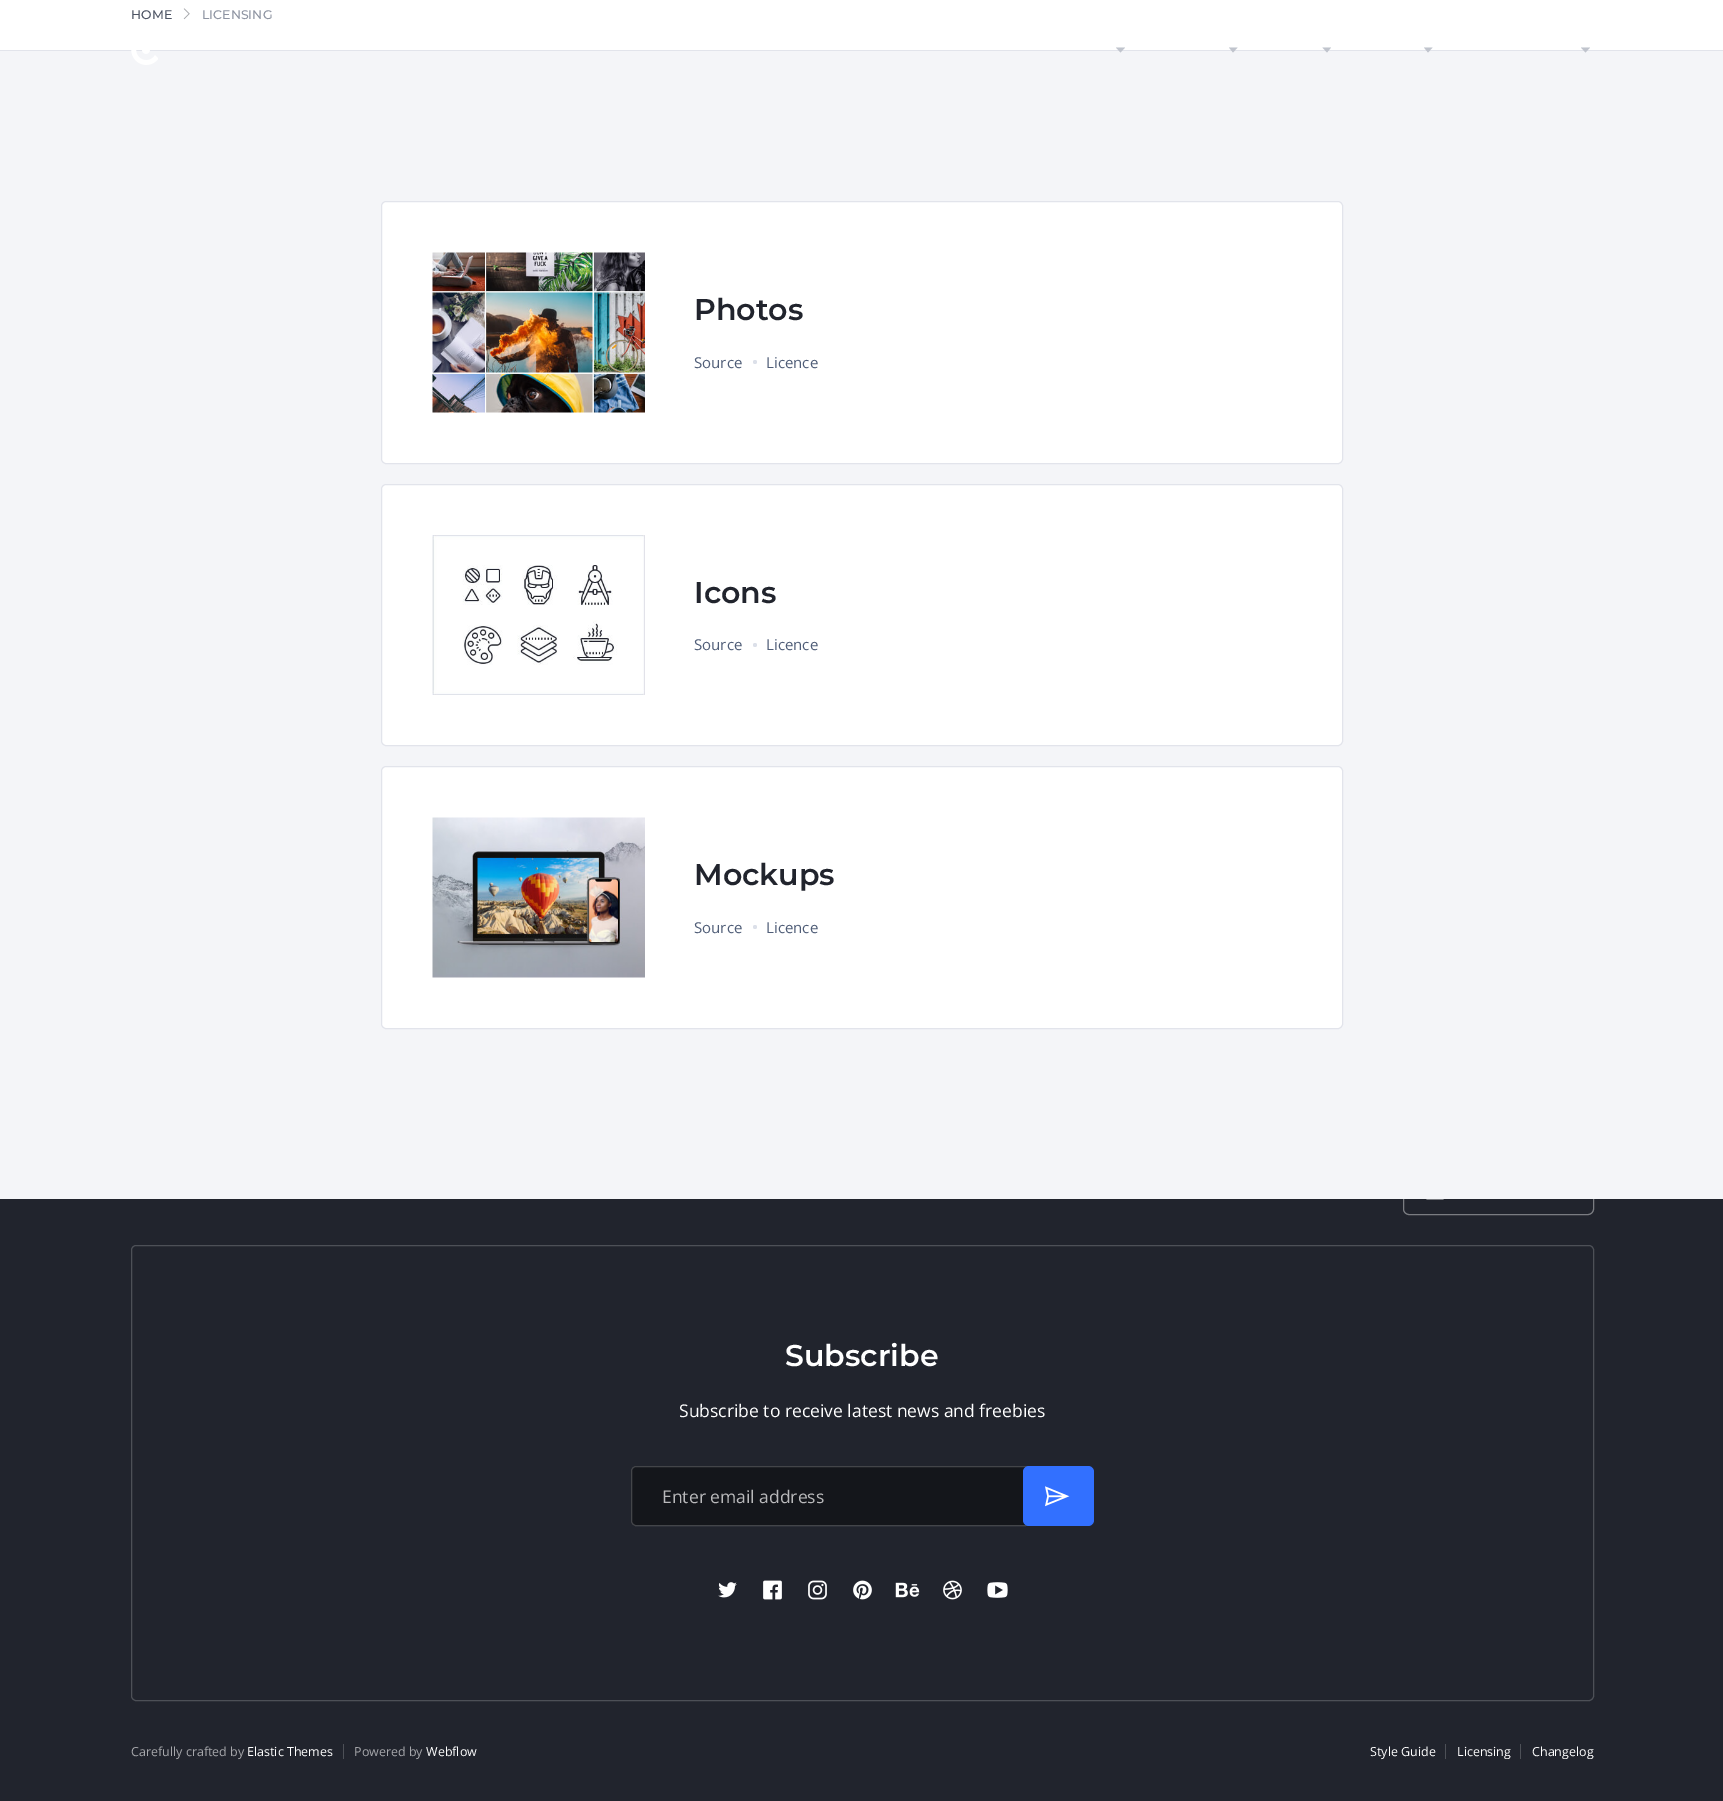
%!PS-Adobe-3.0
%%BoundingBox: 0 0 1723 1801
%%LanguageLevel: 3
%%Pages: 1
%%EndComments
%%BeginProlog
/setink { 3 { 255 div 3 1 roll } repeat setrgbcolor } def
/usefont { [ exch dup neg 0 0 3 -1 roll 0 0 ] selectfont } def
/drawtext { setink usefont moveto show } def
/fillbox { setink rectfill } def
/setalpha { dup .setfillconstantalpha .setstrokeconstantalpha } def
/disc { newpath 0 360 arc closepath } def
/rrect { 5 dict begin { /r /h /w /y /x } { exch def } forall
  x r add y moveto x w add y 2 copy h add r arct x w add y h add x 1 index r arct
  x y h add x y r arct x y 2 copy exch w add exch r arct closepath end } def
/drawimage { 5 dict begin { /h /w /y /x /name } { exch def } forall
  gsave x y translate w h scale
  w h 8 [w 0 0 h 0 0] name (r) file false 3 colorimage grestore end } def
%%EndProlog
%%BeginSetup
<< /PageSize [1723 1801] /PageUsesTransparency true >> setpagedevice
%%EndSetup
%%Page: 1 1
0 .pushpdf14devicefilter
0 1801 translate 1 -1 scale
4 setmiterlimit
0 0 1723 1801 255 255 255 fillbox
0 50 1723 1 226 228 235 fillbox
(HOME) 131 19 /Montserrat-Medium 12.5 77 84 100 drawtext
(assets/img1.rgb) 183 8 7 12 drawimage
(LICENSING) 202 19 /Montserrat-Medium 12.5 142 148 162 drawtext
0 1199 1723 602 33 36 45 fillbox
122 124 129 setink
1403.5 1165.5 190 49 5.5 rrect stroke
0 51 1723 1148 244 245 248 fillbox
(assets/img2.rgb) 131 50 27 15 drawimage
192 196 205 setink
1116 47.5 moveto 1120.5 52.5 lineto 1125 47.5 lineto closepath eofill
1229 47.5 moveto 1233 52.5 lineto 1237.5 47.5 lineto closepath eofill
1322.5 47.5 moveto 1327 52.5 lineto 1331 47.5 lineto closepath eofill
1424 47.5 moveto 1428 52.5 lineto 1432.5 47.5 lineto closepath eofill
1581 47.5 moveto 1585.5 52.5 lineto 1590 47.5 lineto closepath eofill
255 255 255 setink
381.5 201.5 961 262 4.5 rrect gsave fill grestore
226 228 235 setink
stroke
(assets/img3.rgb) 432 252 213 161 drawimage
(Photos) 694 320 /Montserrat-SemiBold 30 33 36 45 drawtext
(Source) 694 368 /OpenSans-Regular 15 80 94 120 drawtext
220 224 233 setink
755 362 2 disc fill
(Licence) 766 368 /OpenSans-Regular 15 80 94 120 drawtext
255 255 255 setink
381.5 484.5 961 261 4.5 rrect gsave fill grestore
226 228 235 setink
stroke
(assets/img4.rgb) 432 535 213 160 drawimage
(Icons) 694 603 /Montserrat-SemiBold 30 33 36 45 drawtext
(Source) 694 650 /OpenSans-Regular 15 80 94 120 drawtext
220 224 233 setink
755 645 2 disc fill
(Licence) 766 650 /OpenSans-Regular 15 80 94 120 drawtext
255 255 255 setink
381.5 766.5 961 262 4.5 rrect gsave fill grestore
226 228 235 setink
stroke
(assets/img5.rgb) 432 817 213 161 drawimage
(Mockups) 694 885 /Montserrat-SemiBold 30 33 36 45 drawtext
(Source) 694 933 /OpenSans-Regular 15 80 94 120 drawtext
220 224 233 setink
755 927 2 disc fill
(Licence) 766 933 /OpenSans-Regular 15 80 94 120 drawtext
(assets/img6.rgb) 1426 1199 18 1 drawimage
77 80 87 setink
131.5 1245.5 1462 455 4.5 rrect stroke
(Subscribe) 785 1366 /Montserrat-SemiBold 30 255 255 255 drawtext
(Subscribe to receive latest news and freebies) 679 1417 /OpenSans-Regular 17.5 255 255 255 drawtext
20 22 27 setink
631 1466 399 60 5 rrect fill
0.2 setalpha
255 255 255 setink
631.5 1466.5 398 59 4.5 rrect stroke
1 setalpha
(Enter email address) 662 1503 /OpenSans-Regular 17.5 185 185 187 drawtext
50 112 255 setink
1023 1466 71 60 6 rrect fill
(assets/img7.rgb) 1045 1486 25 21 drawimage
(assets/img8.rgb) 718 1582 19 16 drawimage
(assets/img9.rgb) 763 1580 19 20 drawimage
(assets/img10.rgb) 808 1580 19 20 drawimage
(assets/img11.rgb) 853 1580 19 20 drawimage
(assets/img12.rgb) 895 1582 25 16 drawimage
(assets/img13.rgb) 943 1580 19 20 drawimage
(assets/img14.rgb) 987 1582 21 16 drawimage
(Carefully crafted by) 131 1756 /OpenSans-Regular 12.5 166 167 171 drawtext
(Elastic Themes) 247 1756 /OpenSans-Regular 12.5 255 255 255 drawtext
343 1744 1 15 77 80 87 fillbox
(Powered by) 354 1756 /OpenSans-Regular 12.5 166 167 171 drawtext
(Webflow) 426 1756 /OpenSans-Regular 12.5 255 255 255 drawtext
(Style Guide) 1370 1756 /OpenSans-Regular 12.5 255 255 255 drawtext
1445 1744 1 15 77 80 87 fillbox
(Licensing) 1457 1756 /OpenSans-Regular 12.5 255 255 255 drawtext
1520 1744 1 15 77 80 87 fillbox
(Changelog) 1532 1756 /OpenSans-Regular 12.5 255 255 255 drawtext
.poppdf14devicefilter showpage
%%EOF
